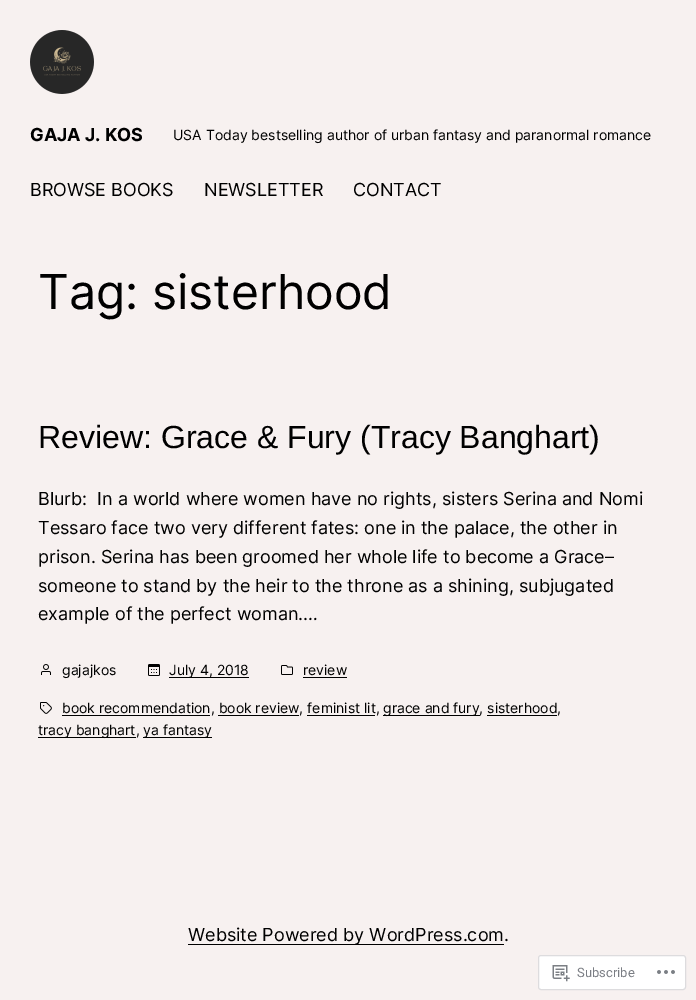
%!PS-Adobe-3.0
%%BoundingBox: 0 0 696 1000
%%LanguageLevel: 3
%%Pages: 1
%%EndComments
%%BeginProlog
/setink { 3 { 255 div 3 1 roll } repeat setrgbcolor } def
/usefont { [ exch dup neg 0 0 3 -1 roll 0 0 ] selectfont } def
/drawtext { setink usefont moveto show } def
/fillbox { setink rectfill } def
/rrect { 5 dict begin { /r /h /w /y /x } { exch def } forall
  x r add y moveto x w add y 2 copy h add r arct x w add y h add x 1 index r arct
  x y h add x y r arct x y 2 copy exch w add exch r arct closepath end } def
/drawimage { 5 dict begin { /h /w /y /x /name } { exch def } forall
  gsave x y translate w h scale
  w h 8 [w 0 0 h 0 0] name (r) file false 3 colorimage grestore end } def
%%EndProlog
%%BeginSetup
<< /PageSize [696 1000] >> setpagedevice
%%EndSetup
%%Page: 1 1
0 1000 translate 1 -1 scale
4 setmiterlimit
0 0 696 1000 247 241 240 fillbox
(assets/img1.rgb) 30 30 64 64 drawimage
(GAJA J. KOS) 30 141 /Inter-Bold 18 0 0 0 drawtext
(USA Today bestselling author of urban fantasy and paranormal romance) 173 140 /Inter-Regular 14 0 0 0 drawtext
(BROWSE BOOKS) 30 196 /Inter-Regular 18 0 0 0 drawtext
(NEWSLETTER) 204 196 /Inter-Regular 18 0 0 0 drawtext
(CONTACT) 353 196 /Inter-Regular 18 0 0 0 drawtext
(Tag: sisterhood) 38 309 /Inter-Regular 48 0 0 0 drawtext
(Review: Grace & Fury \(Tracy Banghart\)) 38 448 /LiberationSans-Regular 32 0 0 0 drawtext
(Blurb:  In a world where women have no rights, sisters Serina and Nomi) 38 505 /Inter-Regular 18 0 0 0 drawtext
(Tessaro face two very different fates: one in the palace, the other in) 38 534 /Inter-Regular 18 0 0 0 drawtext
(prison. Serina has been groomed her whole life to become a Grace–) 38 563 /Inter-Regular 18 0 0 0 drawtext
(someone to stand by the heir to the throne as a shining, subjugated) 38 592 /Inter-Regular 18 0 0 0 drawtext
(example of the perfect woman.…) 38 620 /Inter-Regular 18 0 0 0 drawtext
(assets/img2.rgb) 41 664 10 11 drawimage
(gajajkos) 62 675 /Inter-Regular 14 0 0 0 drawtext
(assets/img3.rgb) 148 664 12 12 drawimage
169 677 80 1 0 0 0 fillbox
(July 4, 2018) 169 675 /Inter-Regular 14 0 0 0 drawtext
(assets/img4.rgb) 281 665 12 10 drawimage
(review) 303 675 /Inter-Regular 14 0 0 0 drawtext
303 677 44 1 0 0 0 fillbox
(assets/img5.rgb) 40 702 12 12 drawimage
62 715 148 1 0 0 0 fillbox
(book recommendation, book review, feminist lit,) 62 713 /Inter-Regular 14 0 0 0 drawtext
383 715 97 1 0 0 0 fillbox
(grace and fury, sisterhood,) 383 713 /Inter-Regular 14 0 0 0 drawtext
218 715 81 1 0 0 0 fillbox
307 715 68 1 0 0 0 fillbox
487 715 70 1 0 0 0 fillbox
38 737 98 1 0 0 0 fillbox
(tracy banghart,) 38 735 /Inter-Regular 14 0 0 0 drawtext
143 737 69 1 0 0 0 fillbox
(ya fantasy) 143 735 /Inter-Regular 14 0 0 0 drawtext
188 944 316 1 0 0 0 fillbox
(Website Powered by WordPress.com.) 188 941 /Inter-Regular 18 0 0 0 drawtext
255 255 255 setink
538.5 955.5 147 34 2.5 rrect gsave fill grestore
221 220 222 setink
stroke
(assets/img6.rgb) 552 965 18 17 drawimage
(Subscribe) 577 977 /Roboto-Regular 13 123 126 132 drawtext
(assets/img7.rgb) 657 970 18 4 drawimage
showpage
%%EOF
